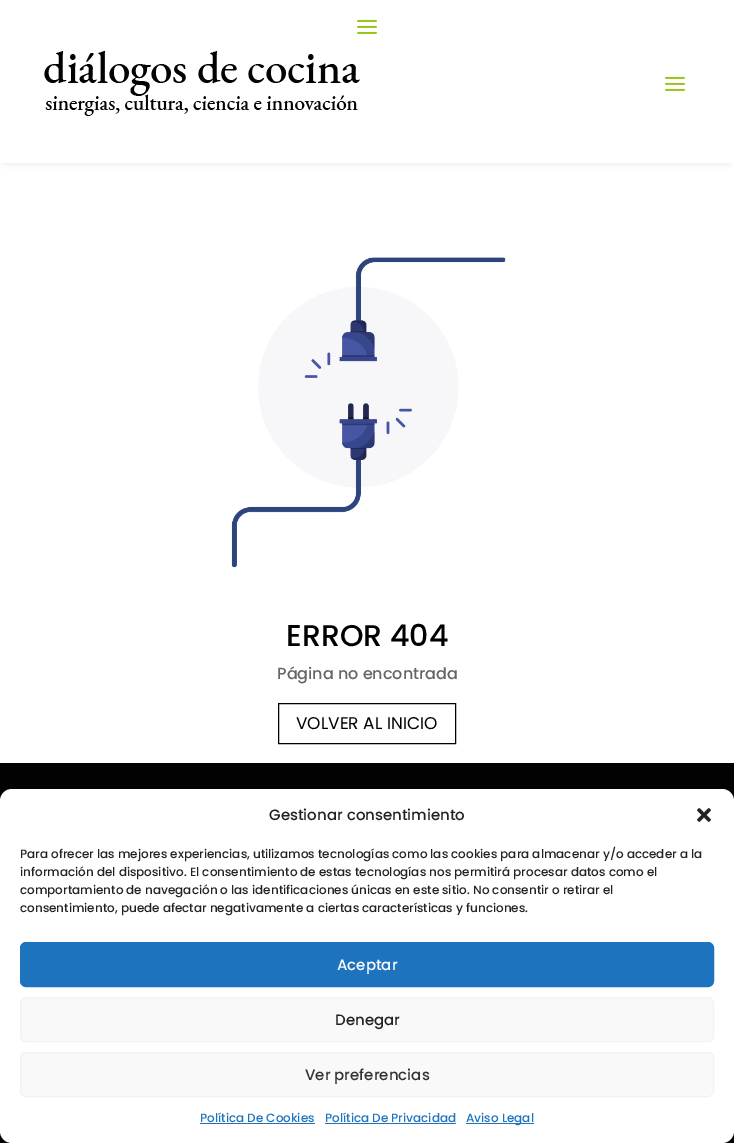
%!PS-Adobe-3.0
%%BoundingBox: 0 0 734 1143
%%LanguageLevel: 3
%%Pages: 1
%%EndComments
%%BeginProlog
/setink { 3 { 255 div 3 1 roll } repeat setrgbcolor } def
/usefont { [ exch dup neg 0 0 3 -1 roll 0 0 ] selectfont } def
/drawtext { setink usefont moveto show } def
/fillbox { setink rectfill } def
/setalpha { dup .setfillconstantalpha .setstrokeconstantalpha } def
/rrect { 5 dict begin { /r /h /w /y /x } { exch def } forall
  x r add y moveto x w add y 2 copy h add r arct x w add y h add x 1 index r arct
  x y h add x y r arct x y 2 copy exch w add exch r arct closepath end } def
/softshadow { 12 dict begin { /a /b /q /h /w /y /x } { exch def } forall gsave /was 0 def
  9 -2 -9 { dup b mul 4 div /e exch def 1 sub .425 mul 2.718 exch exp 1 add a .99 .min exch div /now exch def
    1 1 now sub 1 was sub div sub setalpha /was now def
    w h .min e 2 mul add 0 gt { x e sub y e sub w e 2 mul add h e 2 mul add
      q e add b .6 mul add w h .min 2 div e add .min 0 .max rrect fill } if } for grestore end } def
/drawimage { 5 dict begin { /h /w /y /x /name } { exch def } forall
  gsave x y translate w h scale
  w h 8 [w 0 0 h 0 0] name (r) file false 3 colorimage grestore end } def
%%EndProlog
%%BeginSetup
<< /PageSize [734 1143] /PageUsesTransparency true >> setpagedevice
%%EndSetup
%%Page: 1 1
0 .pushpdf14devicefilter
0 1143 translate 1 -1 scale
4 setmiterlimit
0 0 734 1143 255 255 255 fillbox
0 0 0 setink
6 8 722 151 0 5 0.3 softshadow
0 0 734 163 255 255 255 fillbox
(assets/img1.rgb) 357 19 20 15 drawimage
(assets/img2.rgb) 44 50 316 66 drawimage
(assets/img1.rgb) 665 76 20 15 drawimage
(assets/img3.rgb) 231 257 275 311 drawimage
(ERROR 404) 286 646 /Poppins-Medium 30 0 0 0 drawtext
(Página no encontrada) 277 679 /Poppins-Medium 16 102 102 102 drawtext
0 0 0 setink
278.5 703.5 177 40 rectstroke
(VOLVER AL INICIO) 296 729 /Poppins-Regular 17 0 0 0 drawtext
0 763 734 380 2 2 2 fillbox
255 255 255 setink
0 789 734 354 12 rrect fill
(Gestionar consentimiento) 269 820 /Poppins-Medium 15 34 34 34 drawtext
(assets/img4.rgb) 697 808 14 14 drawimage
(Para ofrecer las mejores experiencias, utilizamos tecnologías como las cookies para almacenar y/o acceder a la) 20 858 /Poppins-Medium 12 34 34 34 drawtext
(información del dispositivo. El consentimiento de estas tecnologías nos permitirá procesar datos como el) 20 876 /Poppins-Medium 12 34 34 34 drawtext
(comportamiento de navegación o las identificaciones únicas en este sitio. No consentir o retirar el) 20 894 /Poppins-Medium 12 34 34 34 drawtext
(consentimiento, puede afectar negativamente a ciertas características y funciones.) 20 912 /Poppins-Medium 12 34 34 34 drawtext
30 115 190 setink
20.5 942.5 693 44 5.5 rrect gsave fill grestore
stroke
(Aceptar) 337 970 /Poppins-Medium 15 255 255 255 drawtext
249 249 249 setink
20.5 997.5 693 44 5.5 rrect gsave fill grestore
242 242 242 setink
stroke
(Denegar) 335 1025 /Poppins-Medium 15 34 34 34 drawtext
249 249 249 setink
20.5 1052.5 693 44 5.5 rrect gsave fill grestore
242 242 242 setink
stroke
(Ver preferencias) 305 1080 /Poppins-Medium 15 51 51 51 drawtext
(Política De Cookies) 200 1122 /Poppins-Medium 12 30 115 190 drawtext
200 1123 115 1 30 115 190 fillbox
(Política De Privacidad) 325 1122 /Poppins-Medium 12 30 115 190 drawtext
325 1123 131 1 30 115 190 fillbox
466 1123 68 1 30 115 190 fillbox
(Aviso Legal) 466 1122 /Poppins-Medium 12 30 115 190 drawtext
.poppdf14devicefilter showpage
%%EOF
